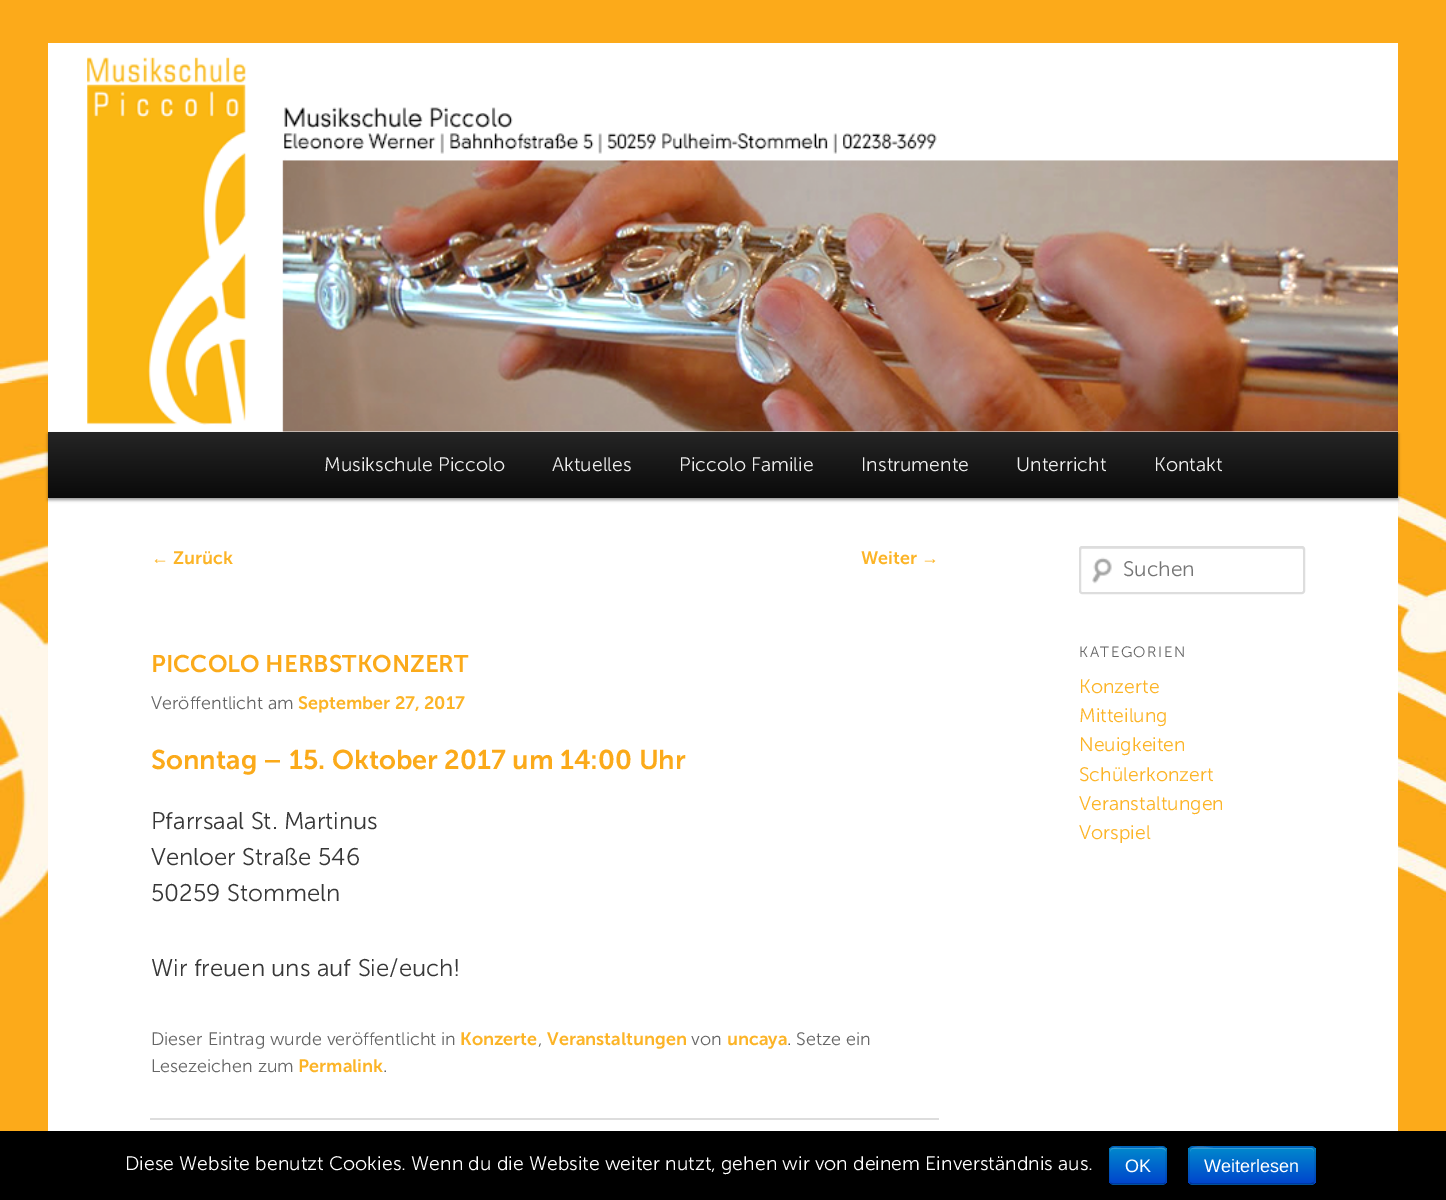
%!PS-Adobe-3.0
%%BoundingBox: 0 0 1446 1200
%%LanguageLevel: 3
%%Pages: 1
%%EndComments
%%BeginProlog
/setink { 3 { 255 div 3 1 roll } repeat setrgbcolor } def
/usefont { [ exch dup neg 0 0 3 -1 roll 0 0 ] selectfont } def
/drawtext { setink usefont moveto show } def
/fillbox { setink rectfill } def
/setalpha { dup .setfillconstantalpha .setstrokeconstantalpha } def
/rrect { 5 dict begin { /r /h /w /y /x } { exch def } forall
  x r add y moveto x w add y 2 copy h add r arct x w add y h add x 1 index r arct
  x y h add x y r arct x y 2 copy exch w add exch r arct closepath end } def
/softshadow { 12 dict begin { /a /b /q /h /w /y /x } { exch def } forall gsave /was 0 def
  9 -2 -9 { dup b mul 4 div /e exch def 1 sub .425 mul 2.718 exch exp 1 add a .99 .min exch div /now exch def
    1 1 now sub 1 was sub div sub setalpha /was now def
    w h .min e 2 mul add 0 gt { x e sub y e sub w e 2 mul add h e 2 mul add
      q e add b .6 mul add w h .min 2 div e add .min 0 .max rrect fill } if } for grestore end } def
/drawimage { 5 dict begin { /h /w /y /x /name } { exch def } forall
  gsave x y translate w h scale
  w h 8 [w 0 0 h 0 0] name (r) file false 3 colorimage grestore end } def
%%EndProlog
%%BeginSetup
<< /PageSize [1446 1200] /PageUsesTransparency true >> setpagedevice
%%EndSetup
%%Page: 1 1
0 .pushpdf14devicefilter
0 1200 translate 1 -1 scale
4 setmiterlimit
0 0 1446 1200 255 255 255 fillbox
(assets/img1.rgb) 0 0 1446 1131 drawimage
48 431 1350 700 255 255 255 fillbox
0 0 0 setink
48 434 1350 66 0 1.5 0.4 softshadow
(assets/img2.rgb) 48 43 1350 389 drawimage
gsave 48 432 moveto 1398 432 lineto 1398 498 lineto 48 498 lineto closepath clip newpath
<< /ShadingType 2 /ColorSpace /DeviceRGB /Coords [723 432 723 498] /Extend [true true] /Function << /FunctionType 2 /Domain [0 1] /C0 [0.145 0.145 0.145] /C1 [0.039 0.039 0.039] /N 1 >> >> shfill grestore
(Musikschule Piccolo) 324 471 /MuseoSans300-Light 19.5 238 238 238 drawtext
(Aktuelles) 552 471 /MuseoSans300-Light 19.5 238 238 238 drawtext
(Piccolo Familie) 679 471 /MuseoSans300-Light 19.5 238 238 238 drawtext
(Instrumente) 861 471 /MuseoSans300-Light 19.5 238 238 238 drawtext
(Unterricht) 1016 471 /MuseoSans300-Light 19.5 238 238 238 drawtext
(Kontakt) 1154 471 /MuseoSans300-Light 19.5 238 238 238 drawtext
(←) 151 564 /LiberationSans-Regular 18 252 180 39 drawtext
(Zurück) 173 564 /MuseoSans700-SemiBold 18 252 180 39 drawtext
(Weiter) 861 564 /MuseoSans700-SemiBold 18 252 180 39 drawtext
(→) 921 564 /LiberationSans-Regular 18 252 180 39 drawtext
150 1118 789 2 221 221 221 fillbox
(PICCOLO HERBSTKONZERT) 151 672 /MuseoSans700-SemiBold 24 251 170 26 drawtext
(Veröffentlicht am) 151 709 /MuseoSans300-Light 18 102 102 102 drawtext
(September 27, 2017) 298 709 /MuseoSans700-SemiBold 18 252 180 39 drawtext
(Sonntag – 15. Oktober 2017 um 14:00 Uhr) 151 769 /MuseoSans700-SemiBold 27 251 170 26 drawtext
(Pfarrsaal St. Martinus) 151 829 /MuseoSans300-Light 24 55 55 55 drawtext
(Venloer Straße 546) 151 865 /MuseoSans300-Light 24 55 55 55 drawtext
(50259 Stommeln) 151 901 /MuseoSans300-Light 24 55 55 55 drawtext
(Wir freuen uns auf Sie/euch!) 151 976 /MuseoSans300-Light 24 55 55 55 drawtext
(Dieser Eintrag wurde veröffentlicht in) 151 1045 /MuseoSans300-Light 18 102 102 102 drawtext
(Konzerte) 460 1045 /MuseoSans700-SemiBold 18 252 180 39 drawtext
(,) 538 1045 /MuseoSans300-Light 18 102 102 102 drawtext
(Veranstaltungen) 547 1045 /MuseoSans700-SemiBold 18 252 180 39 drawtext
(von) 691 1045 /MuseoSans300-Light 18 102 102 102 drawtext
(uncaya) 727 1045 /MuseoSans700-SemiBold 18 252 180 39 drawtext
(. Setze ein) 787 1045 /MuseoSans300-Light 18 102 102 102 drawtext
(Lesezeichen zum) 151 1072 /MuseoSans300-Light 18 102 102 102 drawtext
(Permalink) 298 1072 /MuseoSans700-SemiBold 18 252 180 39 drawtext
(.) 383 1072 /MuseoSans300-Light 18 102 102 102 drawtext
(assets/img3.rgb) 1092 557 20 27 drawimage
230 230 230 setink
1082 549 moveto 1302 549 lineto 1304 550 lineto 1304 549 lineto 1303 548 lineto 1082 548 lineto 1080 548 1080 549 1080 550 curveto closepath fill
221 221 221 setink
2 setlinewidth
1080 547 224 46 2 rrect stroke
(Suchen) 1123 576 /MuseoSans300-Light 21 117 117 117 drawtext
/MuseoSans300-Light 15 usefont
102 102 102 setink
1079 657 moveto 1.5 0 (KATEGORIEN) ashow
(Konzerte) 1079 693 /MuseoSans300-Light 19.5 252 180 39 drawtext
(Mitteilung) 1079 722 /MuseoSans300-Light 19.5 252 180 39 drawtext
(Neuigkeiten) 1079 751 /MuseoSans300-Light 19.5 252 180 39 drawtext
(Schülerkonzert) 1079 781 /MuseoSans300-Light 19.5 252 180 39 drawtext
(Veranstaltungen) 1079 810 /MuseoSans300-Light 19.5 252 180 39 drawtext
(Vorspiel) 1079 839 /MuseoSans300-Light 19.5 252 180 39 drawtext
0 1131 1446 69 0 0 0 fillbox
(Diese Website benutzt Cookies. Wenn du die Website weiter nutzt, gehen wir von deinem Einverständnis aus.) 125 1170 /MuseoSans300-Light 19.5 255 255 255 drawtext
0 109 204 setink
1109 1146 58 39 5 rrect fill
gsave
1109 1146 58 39 5 rrect clip newpath
gsave 1109 1148 moveto 1167 1148 lineto 1167 1184 lineto 1109 1184 lineto closepath clip newpath
<< /ShadingType 2 /ColorSpace /DeviceRGB /Coords [1138 1148 1138 1184] /Extend [true true] /Function << /FunctionType 2 /Domain [0 1] /C0 [0 0.533 0.8] /C1 [0 0.267 0.8] /N 1 >> >> shfill grestore
grestore
51 159 214 setink
1113 1149 moveto 1162 1149 lineto 1164 1149 1166 1150 1166 1152 curveto 1166 1146 1159 1148 1155 1148 curveto 1121 1148 lineto 1117 1148 1110 1146 1110 1152 curveto 1110 1150 1111 1149 1113 1149 curveto closepath fill
0.25 setalpha
0 0 0 setink
1.5 setlinewidth
1165 1183 moveto 1164.5 1184 1163.5 1184 1162.5 1184 curveto 1113 1184 lineto 1112 1184 1111 1184 1110.5 1183 curveto stroke
0.1 setalpha
1110.5 1183 moveto 1109.5 1182.5 1109 1181.5 1109 1180.5 curveto 1109 1150.5 lineto 1109 1149.5 1109.5 1148.5 1110.5 1148 curveto 1111 1147 1112 1147 1113 1147 curveto 1162.5 1147 lineto 1163.5 1147 1164.5 1147 1165 1148 curveto 1166 1148.5 1166 1149.5 1166 1150.5 curveto 1166 1180.5 lineto 1166 1181.5 1166 1182.5 1165 1183 curveto stroke
1 setalpha
(OK) 1125 1172 /LiberationSans-Regular 18 255 255 255 drawtext
0 109 204 setink
1188 1146 128 39 5 rrect fill
gsave
1188 1146 128 39 5 rrect clip newpath
gsave 1188 1148 moveto 1316 1148 lineto 1316 1184 lineto 1188 1184 lineto closepath clip newpath
<< /ShadingType 2 /ColorSpace /DeviceRGB /Coords [1252 1148 1252 1184] /Extend [true true] /Function << /FunctionType 2 /Domain [0 1] /C0 [0 0.533 0.8] /C1 [0 0.267 0.8] /N 1 >> >> shfill grestore
grestore
0.2 setalpha
255 255 255 setink
1192 1149 moveto 1311 1149 lineto 1313 1149 1314 1150 1314 1152 curveto 1314 1150 1313 1148 1311 1148 curveto 1213 1148 lineto 1212 1148 1190 1143 1190 1152 curveto 1190 1150 1191 1149 1192 1149 curveto closepath fill
0.25 setalpha
0 0 0 setink
1313.5 1183 moveto 1311 1184 lineto 1192 1184 lineto 1190 1183 lineto stroke
0.1 setalpha
1190 1183 moveto 1187.5 1180.5 1189 1173 1189 1170.5 curveto 1189 1155.5 lineto 1189 1152.5 1188 1147 1192.5 1147 curveto 1311 1147 lineto 1315.5 1147 1315 1152.5 1315 1155.5 curveto 1315 1170.5 lineto 1315 1173 1316 1180.5 1313.5 1183 curveto stroke
1 setalpha
(Weiterlesen) 1204 1172 /LiberationSans-Regular 18 255 255 255 drawtext
.poppdf14devicefilter showpage
%%EOF
